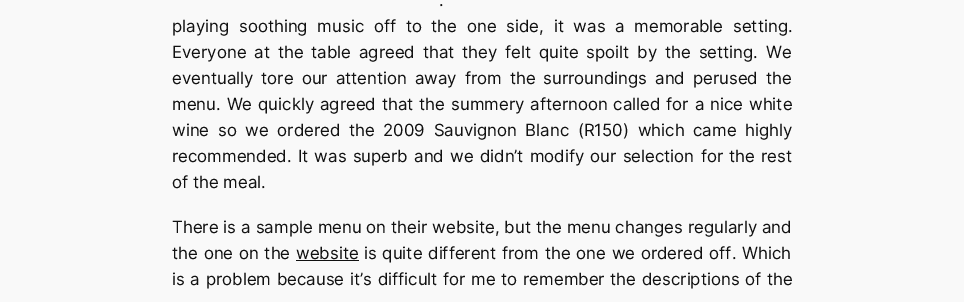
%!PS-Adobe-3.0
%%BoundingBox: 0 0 964 302
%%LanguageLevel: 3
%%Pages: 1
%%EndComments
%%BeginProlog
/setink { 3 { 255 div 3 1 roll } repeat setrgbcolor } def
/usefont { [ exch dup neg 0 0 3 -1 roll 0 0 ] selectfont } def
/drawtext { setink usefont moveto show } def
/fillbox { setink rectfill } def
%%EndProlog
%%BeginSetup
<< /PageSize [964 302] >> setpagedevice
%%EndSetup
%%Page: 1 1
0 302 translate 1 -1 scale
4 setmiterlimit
0 0 964 302 249 249 249 fillbox
/Inter-Regular 16.8 usefont
17 17 17 setink
439 6 moveto 1 0 32 (.) widthshow
172 32 moveto 5 0 32 (playing soothing music off to the one side, it was a memorable setting.) widthshow
172 58 moveto 3.1 0 32 (Everyone at the table agreed that they felt quite spoilt by the setting. We) widthshow
172 84 moveto 3.25 0 32 (eventually tore our attention away from the surroundings and perused the) widthshow
172 110 moveto 1.2 0 32 (menu. We quickly agreed that the summery afternoon called for a nice white) widthshow
172 136 moveto 3.9 0 32 (wine so we ordered the 2009 Sauvignon Blanc \(R150\) which came highly) widthshow
172 162 moveto 1.5 0 32 (recommended. It was superb and we didn’t modify our selection for the rest) widthshow
(of the meal.) 172 188 /Inter-Regular 16.8 17 17 17 drawtext
172 233 moveto 0.25 0 32 (There is a sample menu on their website, but the menu changes regularly and) widthshow
172 259 moveto 1 0 32 (the one on the) widthshow
(website) 296 259 /Inter-Regular 16.8 17 17 17 drawtext
296 260 63 1 17 17 17 fillbox
364 259 moveto 1 0 32 (is quite different from the one we ordered off. Which) widthshow
172 285 moveto 1 0 32 (is a problem because) widthshow
350 285 moveto 1 0 32 (it’s difficult for me to remember the descriptions of the) widthshow
showpage
%%EOF
